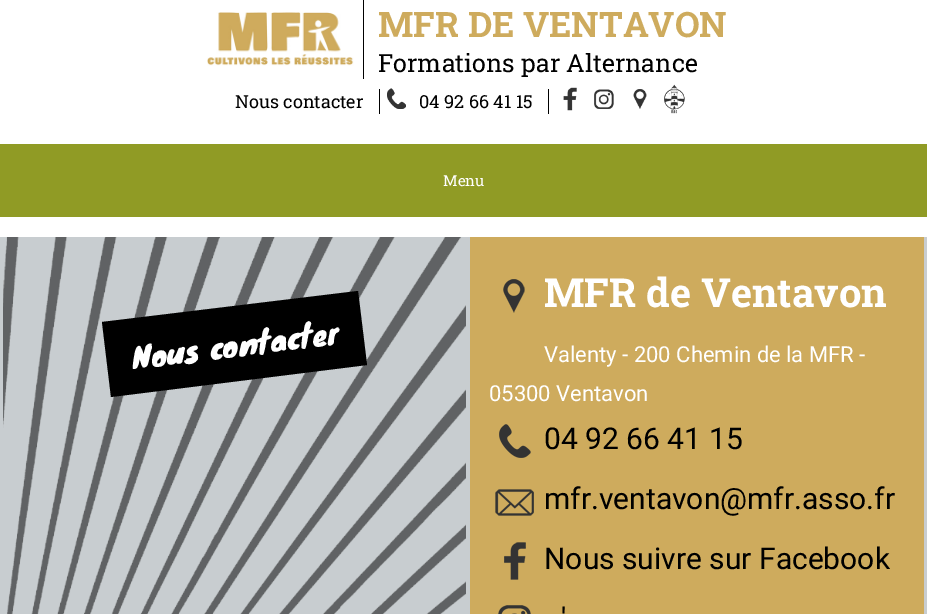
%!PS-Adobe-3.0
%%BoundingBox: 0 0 927 614
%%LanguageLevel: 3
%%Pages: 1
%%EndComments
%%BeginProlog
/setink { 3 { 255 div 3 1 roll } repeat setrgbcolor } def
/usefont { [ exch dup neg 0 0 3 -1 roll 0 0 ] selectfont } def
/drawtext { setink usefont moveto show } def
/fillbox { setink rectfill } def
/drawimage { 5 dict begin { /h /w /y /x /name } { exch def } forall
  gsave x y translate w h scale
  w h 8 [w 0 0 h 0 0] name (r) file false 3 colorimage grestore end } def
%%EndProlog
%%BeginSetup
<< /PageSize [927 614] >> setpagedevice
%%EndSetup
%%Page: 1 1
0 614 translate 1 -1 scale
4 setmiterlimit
0 0 927 614 255 255 255 fillbox
(assets/img1.rgb) 207 12 147 54 drawimage
363 0 1 79 0 0 0 fillbox
(MFR DE VENTAVON) 378 37 /RobotoSlab-Bold 35 206 171 93 drawtext
(Formations par Alternance) 378 72 /RobotoSlab-Regular 25 0 0 0 drawtext
379 89 1 25 0 0 0 fillbox
(Nous contacter) 235 108 /RobotoSlab-Regular 18 0 0 0 drawtext
(assets/img2.rgb) 387 88 19 21 drawimage
548 89 1 25 0 0 0 fillbox
(04 92 66 41 15) 419 108 /RobotoSlab-Regular 18 0 0 0 drawtext
(assets/img3.rgb) 563 87 14 24 drawimage
(assets/img4.rgb) 594 89 20 20 drawimage
(assets/img5.rgb) 633 89 14 20 drawimage
(assets/img6.rgb) 664 84 21 30 drawimage
0 144 927 73 144 155 37 fillbox
(Menu) 443 186 /RobotoSlab-Regular 15 255 255 255 drawtext
0 237 927 377 200 205 208 fillbox
(assets/img7.rgb) 3 237 463 377 drawimage
0 0 0 setink
102 322 moveto 358 291 lineto 367 365 lineto 111 397 lineto closepath fill
/Knewave-Regular 30 usefont
255 255 255 setink
gsave 133 368 translate -7 rotate 0 0 moveto (Nous contacter) show grestore
470 237 454 377 206 171 93 fillbox
(assets/img8.rgb) 503 279 22 34 drawimage
(MFR de Ventavon) 544 307 /RobotoSlab-Bold 40 255 255 255 drawtext
(Valenty - 200 Chemin de la MFR -) 544 362 /Roboto-Regular 22 255 255 255 drawtext
(05300 Ventavon) 489 401 /Roboto-Regular 22 255 255 255 drawtext
(assets/img9.rgb) 499 424 32 34 drawimage
(04 92 66 41 15) 544 449 /Roboto-Regular 30 0 0 0 drawtext
(assets/img10.rgb) 495 489 39 27 drawimage
(mfr.ventavon@mfr.asso.fr) 544 509 /Roboto-Regular 30 0 0 0 drawtext
(assets/img11.rgb) 504 542 22 38 drawimage
(Nous suivre sur Facebook) 544 569 /Roboto-Regular 30 0 0 0 drawtext
(assets/img12.rgb) 498 605 33 9 drawimage
(') 561 629 /Roboto-Regular 30 0 0 0 drawtext
showpage
%%EOF
